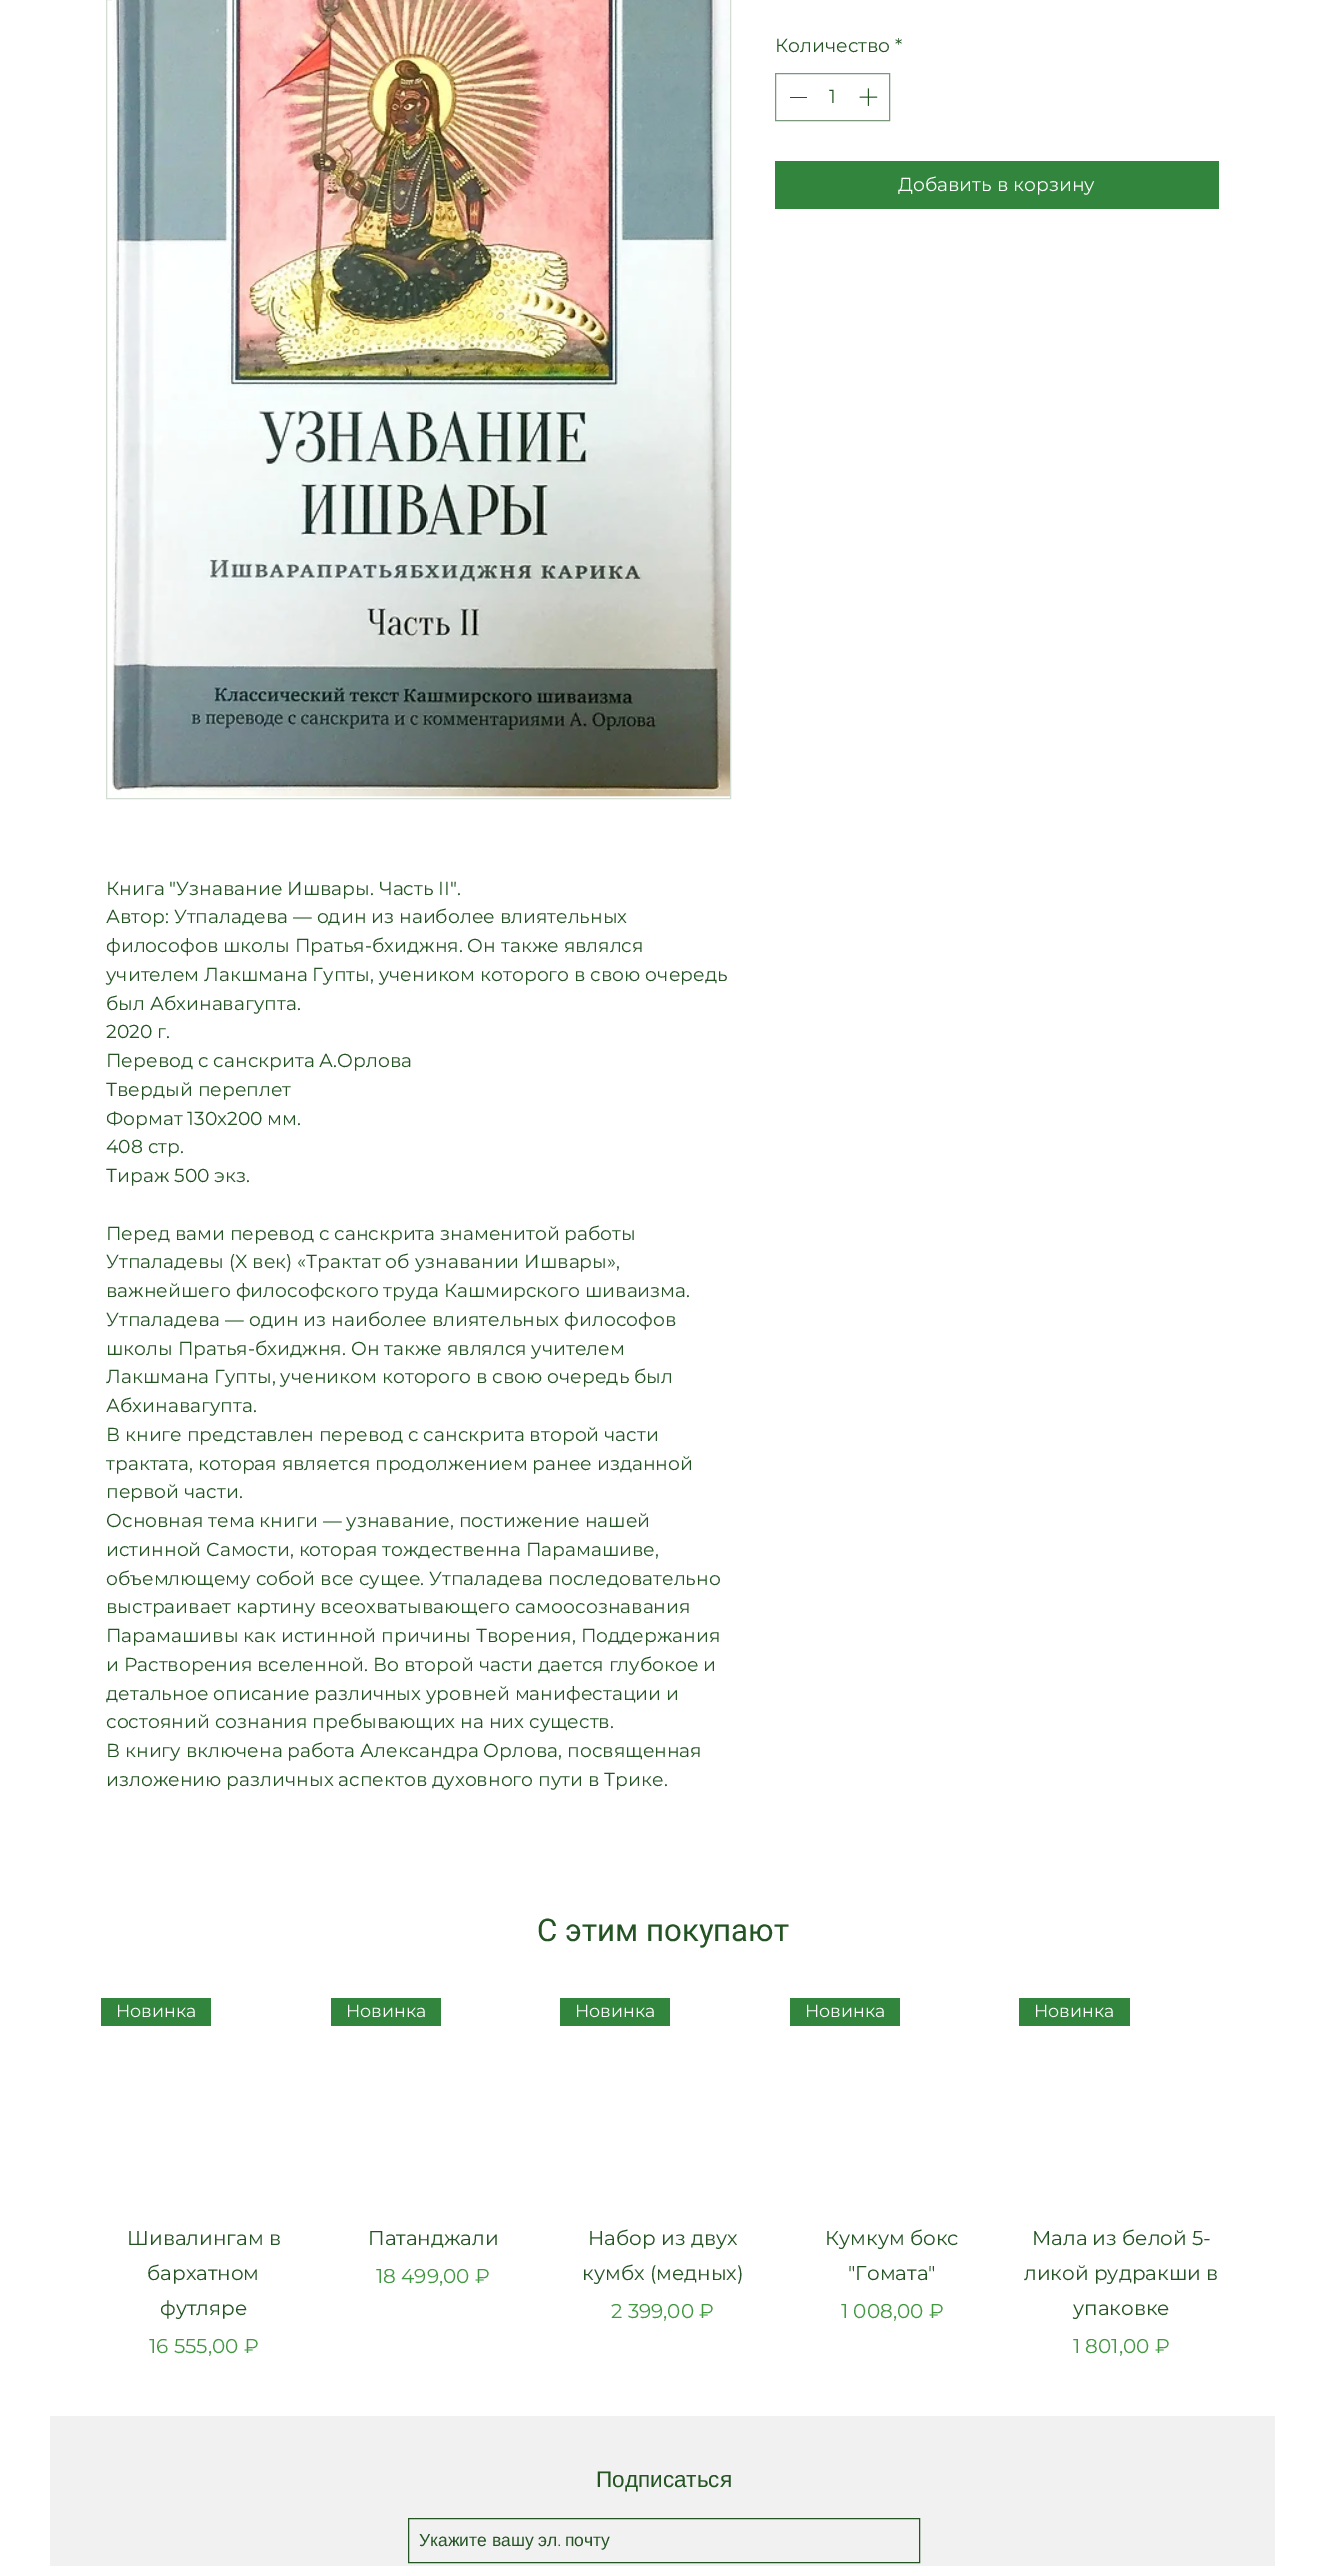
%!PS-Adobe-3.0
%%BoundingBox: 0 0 1324 2566
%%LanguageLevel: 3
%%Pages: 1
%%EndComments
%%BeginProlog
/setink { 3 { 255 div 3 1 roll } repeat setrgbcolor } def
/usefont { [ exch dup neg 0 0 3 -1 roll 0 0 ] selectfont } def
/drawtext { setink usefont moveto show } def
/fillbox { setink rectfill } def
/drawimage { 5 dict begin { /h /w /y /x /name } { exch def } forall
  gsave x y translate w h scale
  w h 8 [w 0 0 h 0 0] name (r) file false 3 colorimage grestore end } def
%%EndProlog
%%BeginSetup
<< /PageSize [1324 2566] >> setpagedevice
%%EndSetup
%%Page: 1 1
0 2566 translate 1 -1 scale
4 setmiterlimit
0 0 1324 2566 255 255 255 fillbox
(Количество *) 775 52 /Montserrat-Regular 18.75 36 84 36 drawtext
124 152 124 setink
775.5 73.5 114 47 rectstroke
790 97 17 1 36 84 36 fillbox
(1) 829 103 /Montserrat-Regular 18.75 36 84 36 drawtext
(assets/img1.rgb) 859 88 19 18 drawimage
775 161 444 48 49 133 60 fillbox
(Добавить в корзину) 898 191 /Montserrat-Regular 18.75 255 255 255 drawtext
211 221 211 setink
106.5 -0.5 624 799 rectstroke
(assets/img2.rgb) 112 0 618 797 drawimage
(Книга "Узнавание Ишвары. Часть II".) 106 895 /Montserrat-Regular 18.75 36 84 36 drawtext
(Автор: Утпаладева — один из наиболее влиятельных) 106 923 /Montserrat-Regular 18.75 36 84 36 drawtext
(философов школы Пратья-бхиджня. Он также являлся) 106 952 /Montserrat-Regular 18.75 36 84 36 drawtext
(учителем Лакшмана Гупты, учеником которого в свою очередь) 106 981 /Montserrat-Regular 18.75 36 84 36 drawtext
(был Абхинавагупта.) 106 1010 /Montserrat-Regular 18.75 36 84 36 drawtext
(2020 г.) 106 1038 /Montserrat-Regular 18.75 36 84 36 drawtext
(Перевод с санскрита А.Орлова) 106 1067 /Montserrat-Regular 18.75 36 84 36 drawtext
(Твердый переплет) 106 1096 /Montserrat-Regular 18.75 36 84 36 drawtext
(Формат 130х200 мм.) 106 1125 /Montserrat-Regular 18.75 36 84 36 drawtext
(408 стр.) 106 1153 /Montserrat-Regular 18.75 36 84 36 drawtext
(Тираж 500 экз.) 106 1182 /Montserrat-Regular 18.75 36 84 36 drawtext
(Перед вами перевод с санскрита знаменитой работы) 106 1240 /Montserrat-Regular 18.75 36 84 36 drawtext
(Утпаладевы \(X век\) «Трактат об узнавании Ишвары»,) 106 1268 /Montserrat-Regular 18.75 36 84 36 drawtext
(важнейшего философского труда Кашмирского шиваизма.) 106 1297 /Montserrat-Regular 18.75 36 84 36 drawtext
(Утпаладева — один из наиболее влиятельных философов) 106 1326 /Montserrat-Regular 18.75 36 84 36 drawtext
(школы Пратья-бхиджня. Он также являлся учителем) 106 1355 /Montserrat-Regular 18.75 36 84 36 drawtext
(Лакшмана Гупты, учеником которого в свою очередь был) 106 1383 /Montserrat-Regular 18.75 36 84 36 drawtext
(Абхинавагупта.) 106 1412 /Montserrat-Regular 18.75 36 84 36 drawtext
(В книге представлен перевод с санскрита второй части) 106 1441 /Montserrat-Regular 18.75 36 84 36 drawtext
(трактата, которая является продолжением ранее изданной) 106 1470 /Montserrat-Regular 18.75 36 84 36 drawtext
(первой части.) 106 1498 /Montserrat-Regular 18.75 36 84 36 drawtext
(Основная тема книги — узнавание, постижение нашей) 106 1527 /Montserrat-Regular 18.75 36 84 36 drawtext
(истинной Самости, которая тождественна Парамашиве,) 106 1556 /Montserrat-Regular 18.75 36 84 36 drawtext
(объемлющему собой все сущее. Утпаладева последовательно) 106 1585 /Montserrat-Regular 18.75 36 84 36 drawtext
(выстраивает картину всеохватывающего самоосознавания) 106 1613 /Montserrat-Regular 18.75 36 84 36 drawtext
(Парамашивы как истинной причины Творения, Поддержания) 106 1642 /Montserrat-Regular 18.75 36 84 36 drawtext
(и Растворения вселенной. Во второй части дается глубокое и) 106 1671 /Montserrat-Regular 18.75 36 84 36 drawtext
(детальное описание различных уровней манифестации и) 106 1700 /Montserrat-Regular 18.75 36 84 36 drawtext
(состояний сознания пребывающих на них существ.) 106 1728 /Montserrat-Regular 18.75 36 84 36 drawtext
(В книгу включена работа Александра Орлова, посвященная) 106 1757 /Montserrat-Regular 18.75 36 84 36 drawtext
(изложению различных аспектов духовного пути в Трике.) 106 1786 /Montserrat-Regular 18.75 36 84 36 drawtext
(С этим покупают) 537 1941 /Roboto-Regular 31.25 36 84 36 drawtext
101 1998 110 28 49 133 60 fillbox
(Новинка) 116 2017 /Montserrat-Regular 17.5 255 255 255 drawtext
(Шивалингам в) 127 2245 /Montserrat-Regular 20 36 84 36 drawtext
(бархатном) 147 2280 /Montserrat-Regular 20 36 84 36 drawtext
(футляре) 160 2315 /Montserrat-Regular 20 36 84 36 drawtext
(16 555,00 ₽) 149 2353 /Montserrat-Regular 20 65 152 65 drawtext
331 1998 110 28 49 133 60 fillbox
(Новинка) 346 2017 /Montserrat-Regular 17.5 255 255 255 drawtext
(Патанджали) 368 2245 /Montserrat-Regular 20 36 84 36 drawtext
(18 499,00 ₽) 376 2283 /Montserrat-Regular 20 65 152 65 drawtext
560 1998 110 28 49 133 60 fillbox
(Новинка) 575 2017 /Montserrat-Regular 17.5 255 255 255 drawtext
(Набор из двух) 588 2245 /Montserrat-Regular 20 36 84 36 drawtext
(кумбх \(медных\)) 582 2280 /Montserrat-Regular 20 36 84 36 drawtext
(2 399,00 ₽) 611 2318 /Montserrat-Regular 20 65 152 65 drawtext
790 1998 110 28 49 133 60 fillbox
(Новинка) 805 2017 /Montserrat-Regular 17.5 255 255 255 drawtext
(Кумкум бокс) 825 2245 /Montserrat-Regular 20 36 84 36 drawtext
("Гомата") 848 2280 /Montserrat-Regular 20 36 84 36 drawtext
(1 008,00 ₽) 841 2318 /Montserrat-Regular 20 65 152 65 drawtext
1019 1998 111 28 49 133 60 fillbox
(Новинка) 1034 2017 /Montserrat-Regular 17.5 255 255 255 drawtext
(Мала из белой 5-) 1032 2245 /Montserrat-Regular 20 36 84 36 drawtext
(ликой рудракши в) 1024 2280 /Montserrat-Regular 20 36 84 36 drawtext
(упаковке) 1073 2315 /Montserrat-Regular 20 36 84 36 drawtext
(1 801,00 ₽) 1073 2353 /Montserrat-Regular 20 65 152 65 drawtext
50 2416 1225 150 241 241 241 fillbox
(Подписаться) 596 2487 /LiberationSans-Regular 22.5 36 84 36 drawtext
408.5 2518.5 511 44 rectstroke
(Укажите вашу эл) 419 2546 /LiberationSans-Regular 17.5 36 84 36 drawtext
(.) 557 2546 /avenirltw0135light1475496-Light 17.5 36 84 36 drawtext
(почту) 565 2546 /LiberationSans-Regular 17.5 36 84 36 drawtext
showpage
%%EOF
